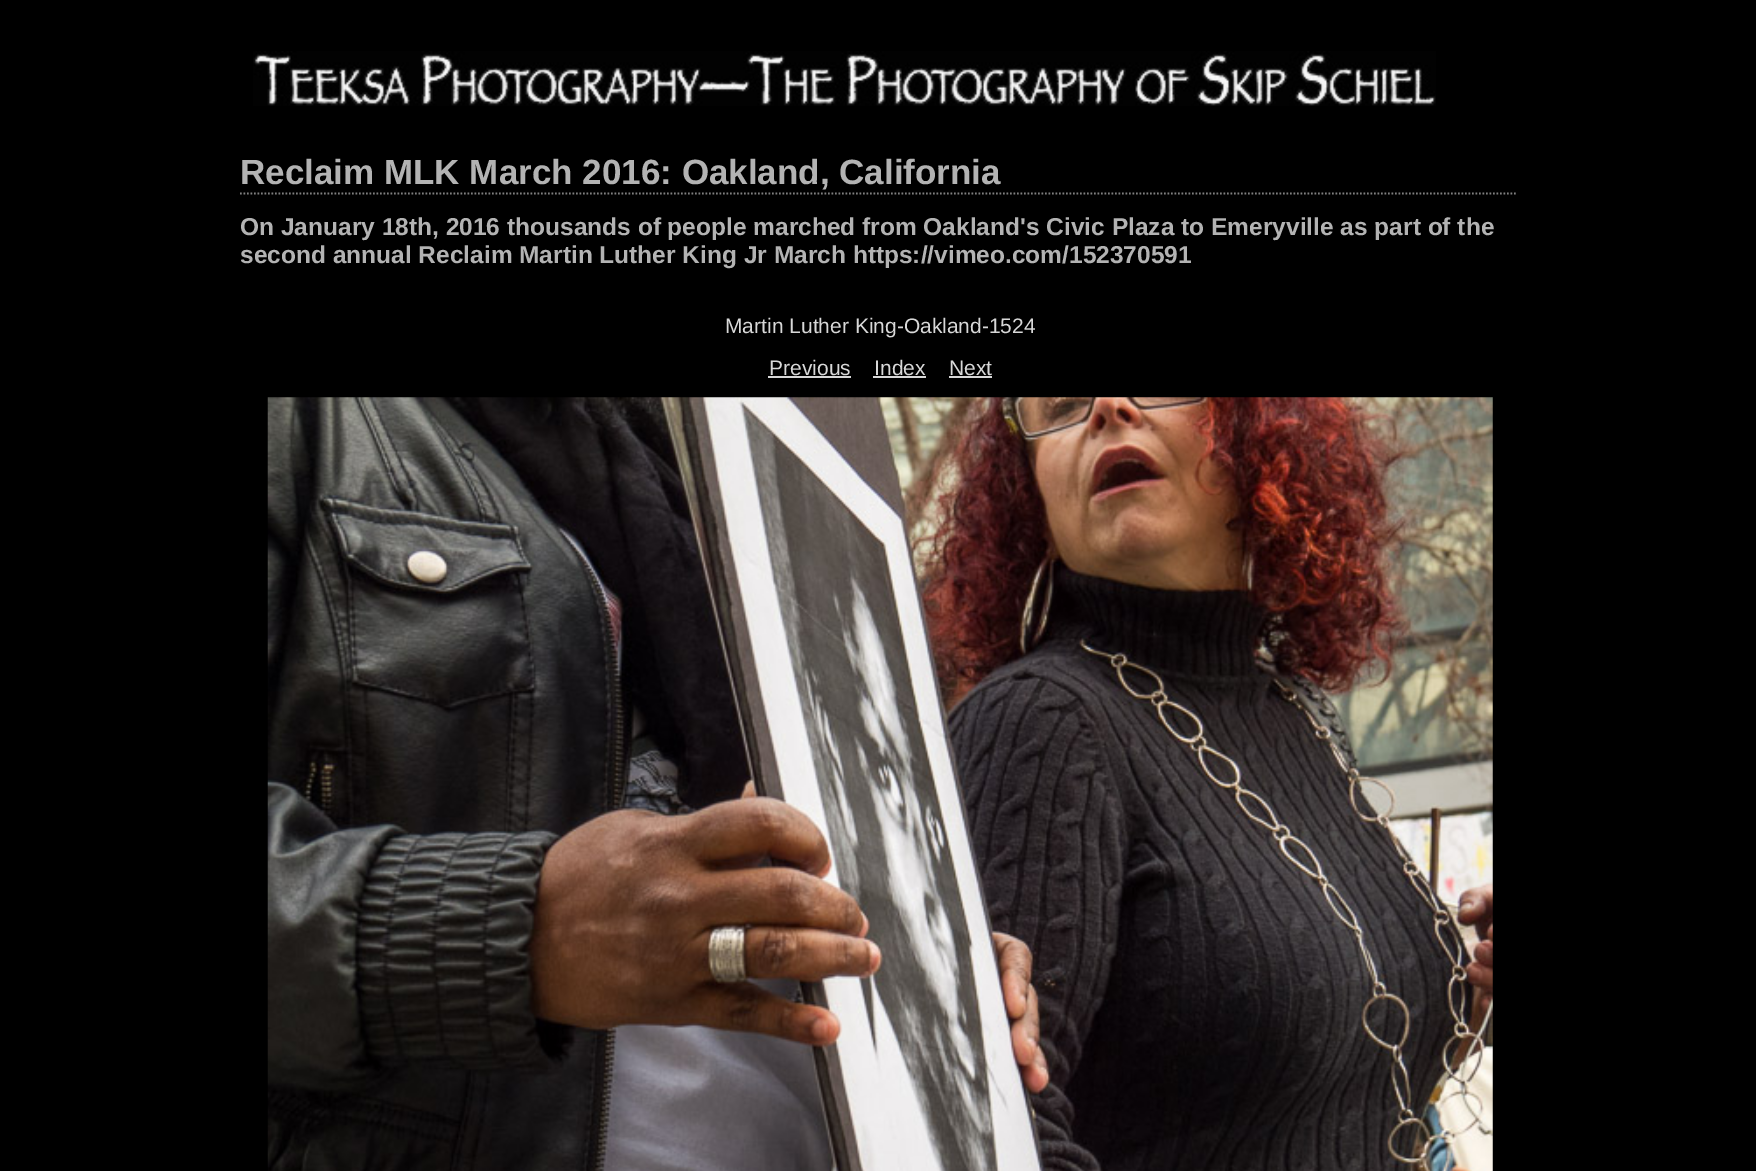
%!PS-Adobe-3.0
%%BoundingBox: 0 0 1756 1171
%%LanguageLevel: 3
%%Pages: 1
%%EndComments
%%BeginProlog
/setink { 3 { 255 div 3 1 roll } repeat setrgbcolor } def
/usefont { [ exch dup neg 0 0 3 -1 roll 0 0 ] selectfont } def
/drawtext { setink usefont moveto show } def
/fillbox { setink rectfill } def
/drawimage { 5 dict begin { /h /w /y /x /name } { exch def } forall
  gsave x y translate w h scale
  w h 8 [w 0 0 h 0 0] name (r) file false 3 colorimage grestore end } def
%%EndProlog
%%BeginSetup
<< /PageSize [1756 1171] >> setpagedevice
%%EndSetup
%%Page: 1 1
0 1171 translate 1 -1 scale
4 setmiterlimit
0 0 1756 1171 0 0 0 fillbox
(assets/img1.rgb) 253 51 1183 55 drawimage
127 127 127 setink
1.8 setlinewidth
[1.75 1.75] 0 setdash
240 193.5 moveto 1517 193.5 lineto stroke
(Reclaim MLK March 2016: Oakland, California) 240 184 /LiberationSans-Bold 35 179 179 179 drawtext
(On January 18th, 2016 thousands of people marched from Oakland's Civic Plaza to Emeryville as part of the) 240 235 /LiberationSans-Bold 24.5 179 179 179 drawtext
(second annual Reclaim Martin Luther King Jr March https://vimeo.com/152370591) 240 263 /LiberationSans-Bold 24.5 179 179 179 drawtext
(Martin Luther King-Oakland-1524) 725 333 /LiberationSans-Regular 21 216 216 216 drawtext
(Previous) 769 375 /LiberationSans-Regular 21 216 216 216 drawtext
768 376 83 2 216 216 216 fillbox
(Index) 874 375 /LiberationSans-Regular 21 216 216 216 drawtext
873 376 53 2 216 216 216 fillbox
(Next) 949 375 /LiberationSans-Regular 21 216 216 216 drawtext
949 376 43 2 216 216 216 fillbox
(assets/img2.rgb) 267 397 1226 774 drawimage
showpage
%%EOF
